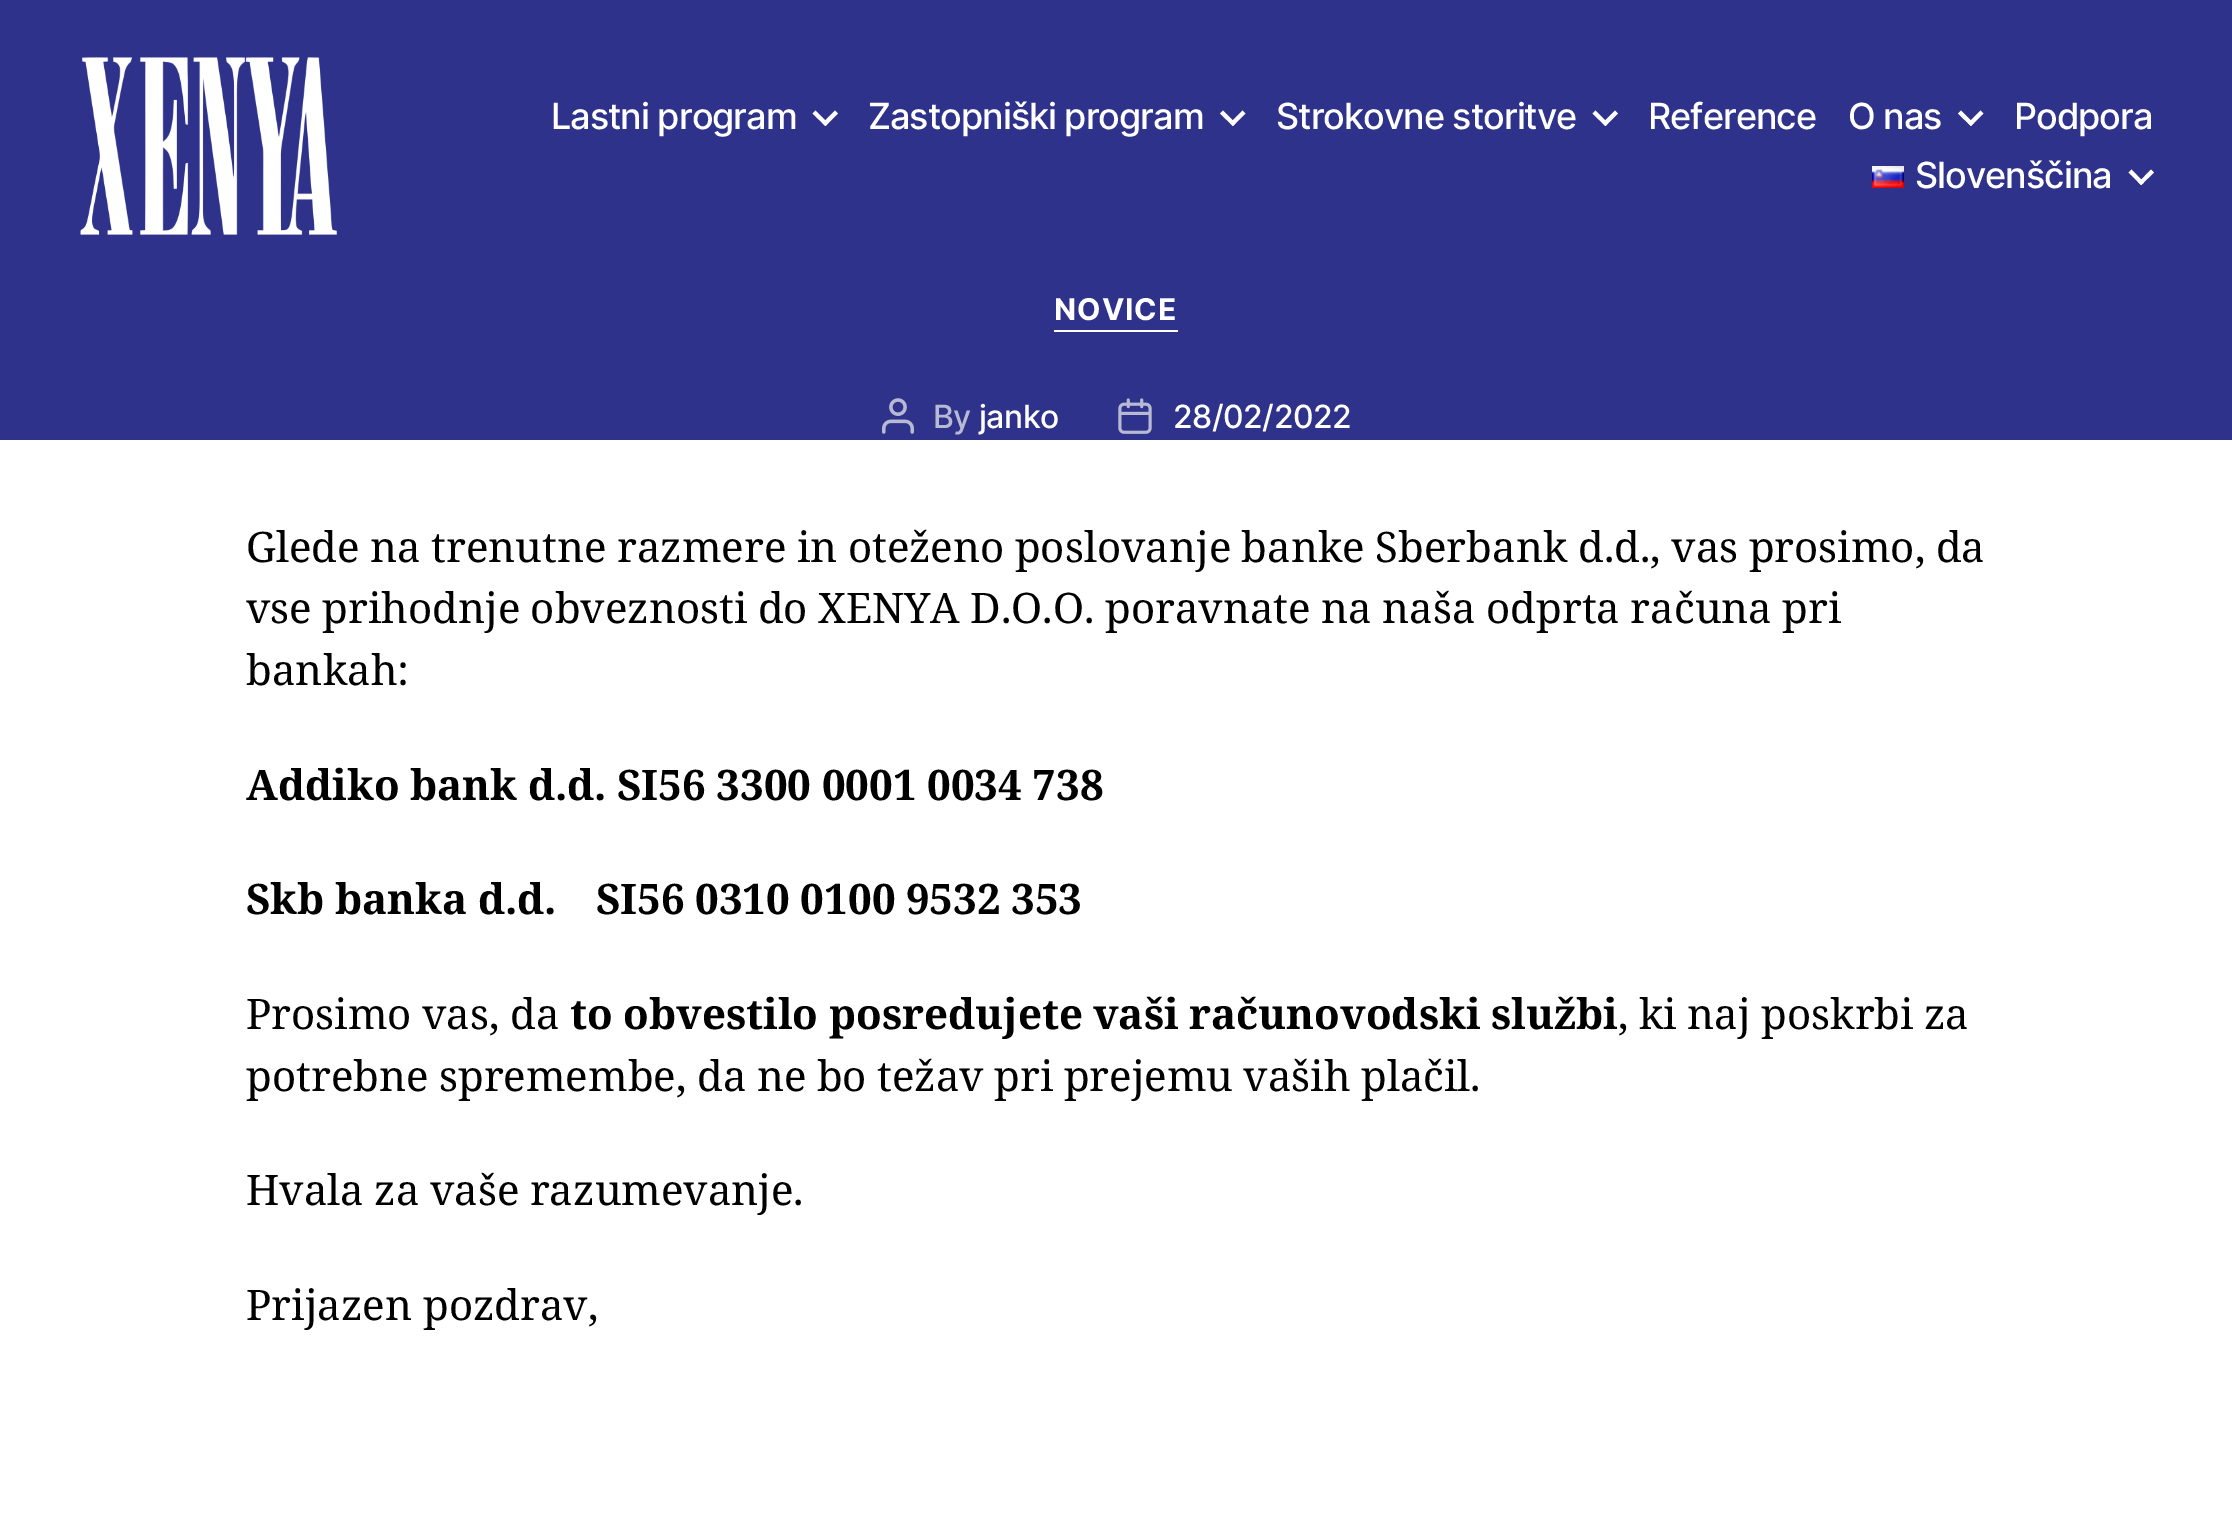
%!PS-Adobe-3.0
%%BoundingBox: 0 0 2232 1531
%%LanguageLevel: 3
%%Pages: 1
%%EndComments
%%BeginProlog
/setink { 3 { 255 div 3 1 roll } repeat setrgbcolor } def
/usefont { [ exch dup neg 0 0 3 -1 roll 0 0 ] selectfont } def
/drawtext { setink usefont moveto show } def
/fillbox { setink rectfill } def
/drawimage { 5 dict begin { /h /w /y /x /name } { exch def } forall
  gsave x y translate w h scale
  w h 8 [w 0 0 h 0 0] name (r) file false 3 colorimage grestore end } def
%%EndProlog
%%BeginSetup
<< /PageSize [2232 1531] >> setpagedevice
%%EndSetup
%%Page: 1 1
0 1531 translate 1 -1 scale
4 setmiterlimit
0 0 2232 1531 255 255 255 fillbox
0 0 2232 440 46 50 139 fillbox
(assets/img1.rgb) 80 57 257 178 drawimage
/Inter-Medium 36 usefont
255 255 255 setink
551 129 moveto -1 0 (Lastni program) ashow
812.5 113.5 moveto 815.5 110.5 lineto 828 123 lineto 825.5 126 lineto closepath fill
822.5 123 moveto 835 110.5 lineto 838 113.5 lineto 825.5 126 lineto closepath fill
868 129 moveto -1 0 (Zastopniški program) ashow
1220 113.5 moveto 1223 110.5 lineto 1235.5 123 lineto 1233 126 lineto closepath fill
1230 123 moveto 1242.5 110.5 lineto 1245.5 113.5 lineto 1233 126 lineto closepath fill
1276 129 moveto -1 0 (Strokovne storitve) ashow
1592.5 113.5 moveto 1595.5 110.5 lineto 1608 123 lineto 1605.5 126 lineto closepath fill
1602.5 123 moveto 1615 110.5 lineto 1618 113.5 lineto 1605.5 126 lineto closepath fill
1648 129 moveto -1 0 (Reference) ashow
1848 129 moveto -1 0 (O nas) ashow
1958 113.5 moveto 1961 110.5 lineto 1973.5 123 lineto 1971 126 lineto closepath fill
1968 123 moveto 1980.5 110.5 lineto 1983.5 113.5 lineto 1971 126 lineto closepath fill
2014 129 moveto -1 0 (Podpora) ashow
(assets/img2.rgb) 1872 166 32 22 drawimage
1915 188 moveto -1 0 (Slovenščina) ashow
2128.5 172.5 moveto 2131.5 169.5 lineto 2144 182.5 lineto 2141 185 lineto closepath fill
2138.5 182.5 moveto 2151 169.5 lineto 2154 172.5 lineto 2141 185 lineto closepath fill
1054 330 124 2 255 255 255 fillbox
/Inter-Bold 30 usefont
1054 320 moveto 1 0 (NOVICE) ashow
(assets/img3.rgb) 882 398 32 36 drawimage
/Inter-Medium 32 usefont
184 186 212 setink
933 428 moveto -0.5 0 (By) ashow
255 255 255 setink
979 428 moveto -0.5 0 (janko) ashow
(assets/img4.rgb) 1118 398 34 36 drawimage
1173 428 moveto -0.5 0 (28/02/2022) ashow
/NotoSerif-Regular 42 usefont
0 0 0 setink
246 562 moveto -0.5 0 32 (Glede na trenutne razmere in oteženo poslovanje banke Sberbank d.d., vas prosimo, da) widthshow
246 623 moveto -0.5 0 32 (vse prihodnje obveznosti do XENYA D.O.O. poravnate na naša odprta računa pri) widthshow
(bankah:) 246 685 /NotoSerif-Regular 42 0 0 0 drawtext
/NotoSerif-Bold 42 usefont
246 800 moveto -0.5 0 32 (Addiko bank d.d. SI56 3300 0001 0034 738) widthshow
246 914 moveto -0.5 0 32 (Skb banka d.d.) widthshow
596 914 moveto -0.5 0 32 (SI56 0310 0100 9532 353) widthshow
/NotoSerif-Regular 42 usefont
246 1029 moveto -0.5 0 32 (Prosimo vas, da) widthshow
/NotoSerif-Bold 42 usefont
570 1029 moveto -0.5 0 32 (to obvestilo posredujete vaši računovodski službi) widthshow
/NotoSerif-Regular 42 usefont
1618 1029 moveto -0.5 0 32 (, ki naj poskrbi za) widthshow
246 1091 moveto -0.5 0 32 (potrebne spremembe, da ne bo težav pri prejemu vaših plačil.) widthshow
246 1205 moveto -0.5 0 32 (Hvala za vaše razumevanje.) widthshow
(Prijazen pozdrav,) 246 1320 /NotoSerif-Regular 42 0 0 0 drawtext
showpage
%%EOF
